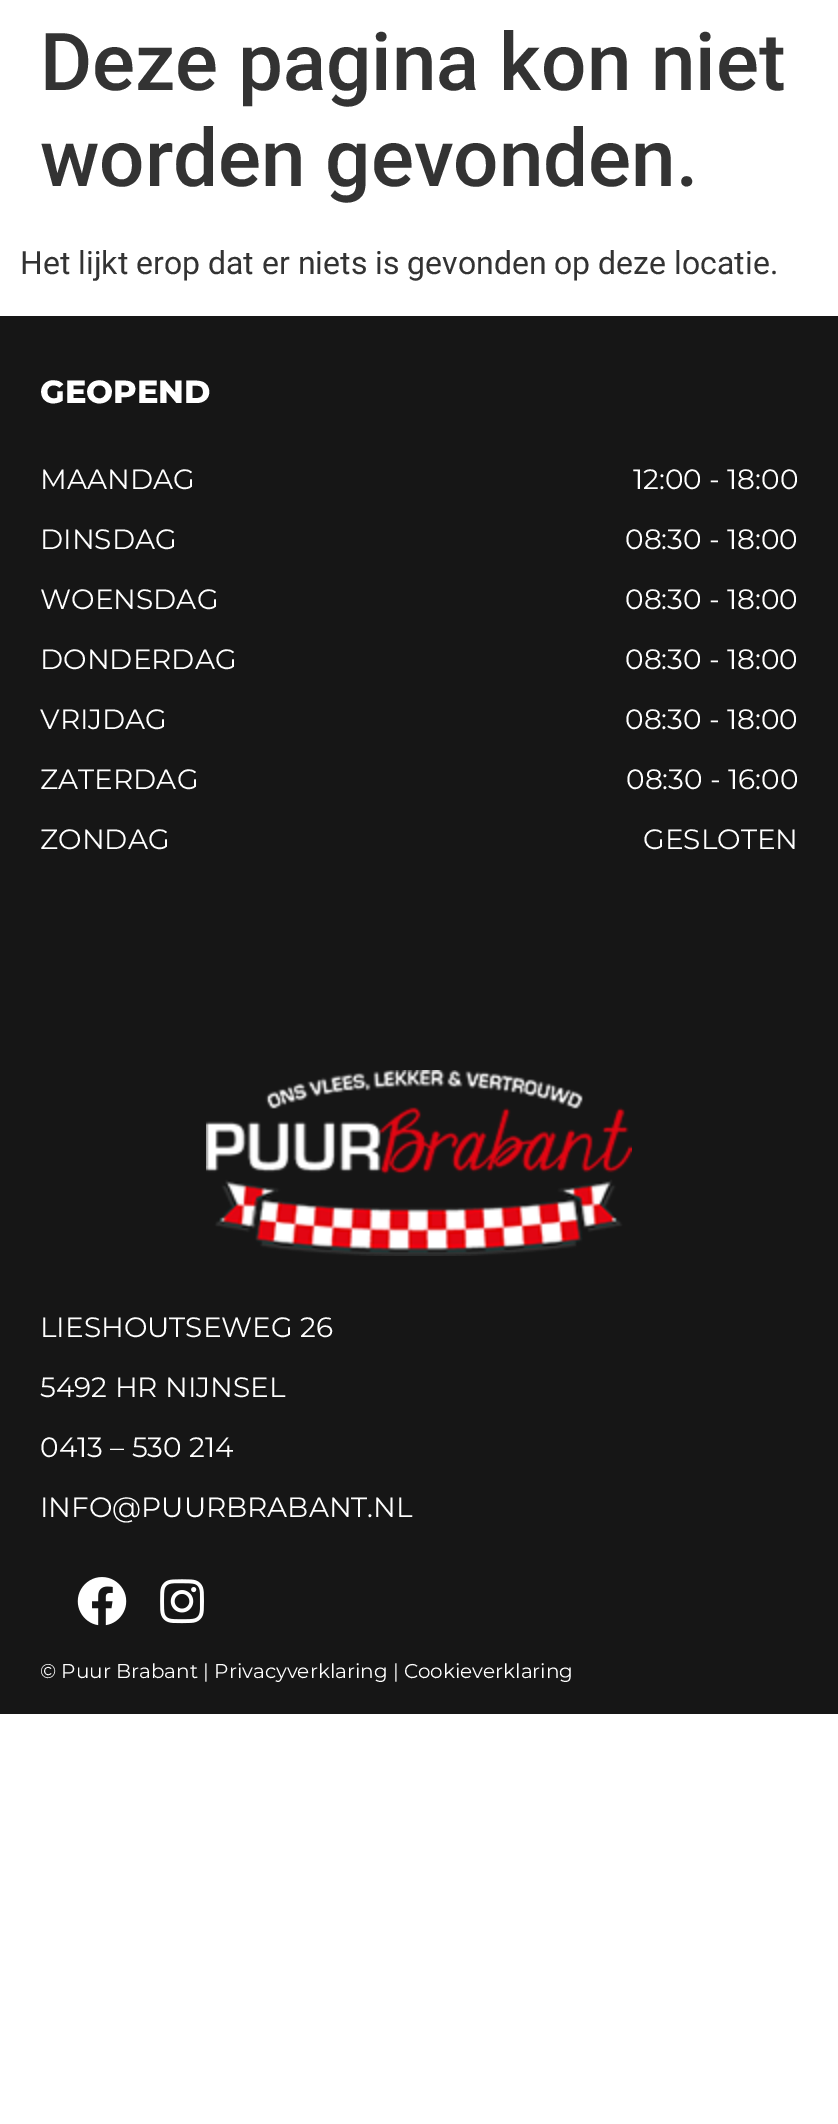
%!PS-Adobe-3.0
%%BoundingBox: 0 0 838 2124
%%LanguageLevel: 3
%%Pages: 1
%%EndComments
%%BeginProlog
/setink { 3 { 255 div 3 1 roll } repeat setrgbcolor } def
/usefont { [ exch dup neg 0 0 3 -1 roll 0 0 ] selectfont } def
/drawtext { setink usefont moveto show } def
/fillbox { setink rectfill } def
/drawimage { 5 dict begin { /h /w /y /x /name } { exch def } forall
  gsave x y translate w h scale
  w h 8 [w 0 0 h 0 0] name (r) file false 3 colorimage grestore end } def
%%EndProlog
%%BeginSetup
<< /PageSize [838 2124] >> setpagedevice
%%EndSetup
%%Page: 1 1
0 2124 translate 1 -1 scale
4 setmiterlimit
0 0 838 2124 255 255 255 fillbox
(Deze pagina kon niet) 40 90 /Roboto-Medium 80 51 51 51 drawtext
(worden gevonden.) 40 186 /Roboto-Medium 80 51 51 51 drawtext
(Het lijkt erop dat er niets is gevonden op deze locatie.) 20 274 /Roboto-Regular 32 51 51 51 drawtext
0 316 838 1398 22 22 22 fillbox
(GEOPEND) 40 403 /Montserrat-ExtraBold 32 255 255 255 drawtext
(MAANDAG) 40 489 /Montserrat-Regular 28 255 255 255 drawtext
(12:00 - 18:00) 633 489 /Montserrat-Regular 28 255 255 255 drawtext
(DINSDAG) 40 549 /Montserrat-Regular 28 255 255 255 drawtext
(08:30 - 18:00) 625 549 /Montserrat-Regular 28 255 255 255 drawtext
(WOENSDAG) 40 609 /Montserrat-Regular 28 255 255 255 drawtext
(08:30 - 18:00) 625 609 /Montserrat-Regular 28 255 255 255 drawtext
(DONDERDAG) 40 669 /Montserrat-Regular 28 255 255 255 drawtext
(08:30 - 18:00) 625 669 /Montserrat-Regular 28 255 255 255 drawtext
(VRIJDAG) 40 729 /Montserrat-Regular 28 255 255 255 drawtext
(08:30 - 18:00) 625 729 /Montserrat-Regular 28 255 255 255 drawtext
(ZATERDAG) 40 789 /Montserrat-Regular 28 255 255 255 drawtext
(08:30 - 16:00) 626 789 /Montserrat-Regular 28 255 255 255 drawtext
(ZONDAG) 40 849 /Montserrat-Regular 28 255 255 255 drawtext
(GESLOTEN) 643 849 /Montserrat-Regular 28 255 255 255 drawtext
(assets/img1.rgb) 206 1070 426 186 drawimage
(LIESHOUTSEWEG 26) 40 1337 /Montserrat-Regular 28 255 255 255 drawtext
(5492 HR NIJNSEL) 40 1397 /Montserrat-Regular 28 255 255 255 drawtext
(0413 – 530 214) 40 1457 /Montserrat-Regular 28 255 255 255 drawtext
(INFO@PUURBRABANT.NL) 40 1517 /Montserrat-Regular 28 255 255 255 drawtext
(assets/img2.rgb) 77 1577 50 49 drawimage
(assets/img3.rgb) 160 1579 44 45 drawimage
(© Puur Brabant | Privacyverklaring | Cookieverklaring) 40 1678 /Montserrat-Regular 20 255 255 255 drawtext
showpage
%%EOF
